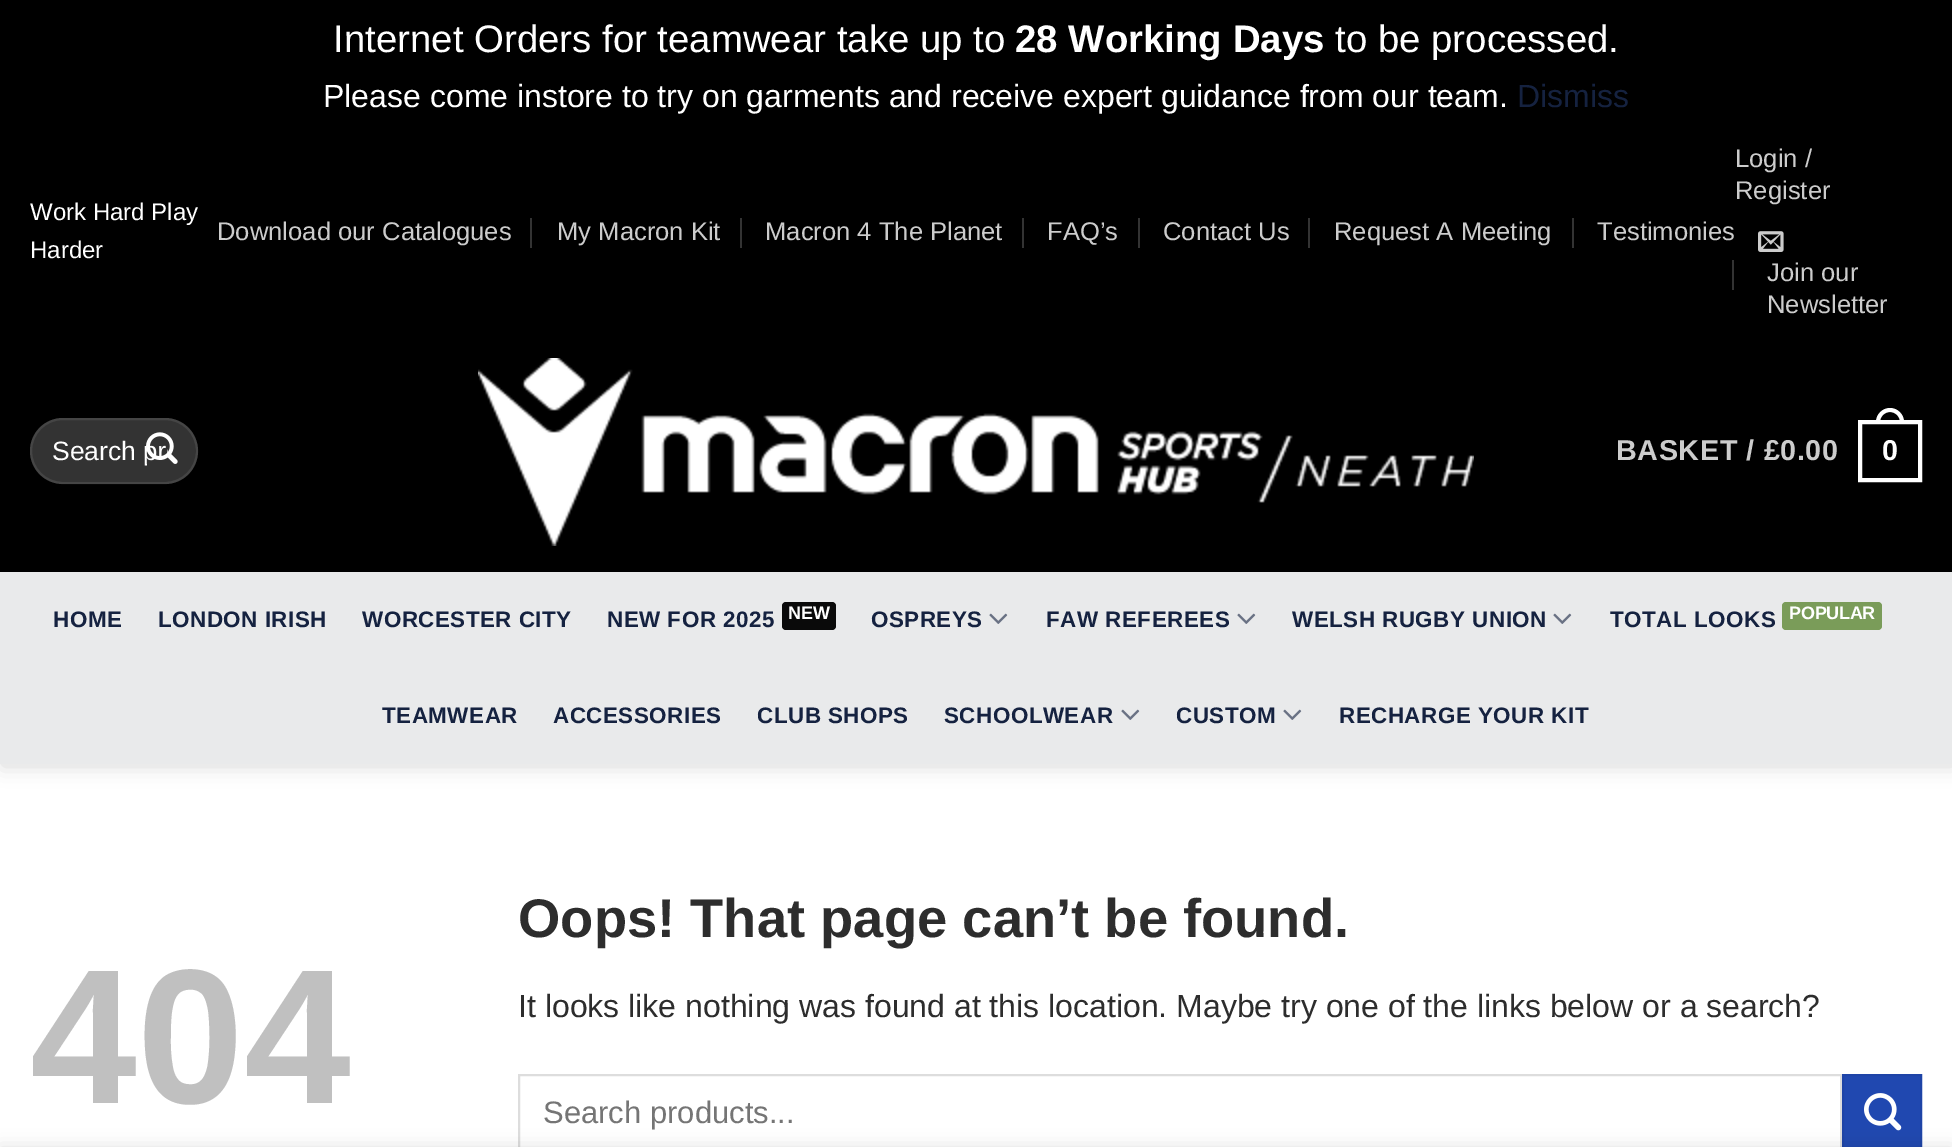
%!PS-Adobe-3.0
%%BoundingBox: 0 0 1952 1147
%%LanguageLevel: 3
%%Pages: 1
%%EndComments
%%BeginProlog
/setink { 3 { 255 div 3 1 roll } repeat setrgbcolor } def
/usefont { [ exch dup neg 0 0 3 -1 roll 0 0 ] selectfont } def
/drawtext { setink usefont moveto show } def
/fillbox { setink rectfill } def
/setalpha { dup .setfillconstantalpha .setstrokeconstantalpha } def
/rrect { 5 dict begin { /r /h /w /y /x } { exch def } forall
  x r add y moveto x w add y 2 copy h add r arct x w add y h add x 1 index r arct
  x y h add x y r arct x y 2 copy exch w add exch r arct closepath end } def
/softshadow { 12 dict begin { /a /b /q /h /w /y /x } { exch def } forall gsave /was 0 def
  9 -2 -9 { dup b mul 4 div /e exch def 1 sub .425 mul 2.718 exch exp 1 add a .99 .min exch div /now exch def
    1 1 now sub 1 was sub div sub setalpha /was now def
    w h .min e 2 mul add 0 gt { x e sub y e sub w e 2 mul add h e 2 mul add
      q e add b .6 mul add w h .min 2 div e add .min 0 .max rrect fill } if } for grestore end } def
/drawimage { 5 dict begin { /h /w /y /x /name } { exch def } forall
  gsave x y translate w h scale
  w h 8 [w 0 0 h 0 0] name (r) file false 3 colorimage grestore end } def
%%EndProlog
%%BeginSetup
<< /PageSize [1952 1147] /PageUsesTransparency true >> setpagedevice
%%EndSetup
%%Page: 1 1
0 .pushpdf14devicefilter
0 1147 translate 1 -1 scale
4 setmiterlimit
0 0 1952 1147 255 255 255 fillbox
0 0 1952 132 0 0 0 fillbox
(Internet Orders for teamwear take up to) 333 52 /LiberationSans-Regular 38.4 255 255 255 drawtext
(28 Working Days) 1015 52 /LiberationSans-Bold 38.4 255 255 255 drawtext
(to be processed.) 1335 52 /LiberationSans-Regular 38.4 255 255 255 drawtext
(Please come instore to try on garments and receive expert guidance from our team.) 323 107 /LiberationSans-Regular 32 255 255 255 drawtext
(Dismiss) 1517 107 /LiberationSans-Regular 32 21 34 64 drawtext
0 0 0 setink
2 134 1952 632 0 10 0.15 softshadow
0 132 1952 440 0 0 0 fillbox
(Work Hard Play) 30 220 /LiberationSans-Regular 24 255 255 255 drawtext
(Harder) 30 258 /LiberationSans-Regular 24 255 255 255 drawtext
(Download our Catalogues) 217 240 /LiberationSans-Regular 25.6 204 204 204 drawtext
530 218 2 30 51 51 51 fillbox
(My Macron Kit) 557 240 /LiberationSans-Regular 25.6 204 204 204 drawtext
740 218 2 30 51 51 51 fillbox
(Macron 4 The Planet) 765 240 /LiberationSans-Regular 25.6 204 204 204 drawtext
1022 218 2 30 51 51 51 fillbox
(FAQ’s) 1047 240 /LiberationSans-Regular 25.6 204 204 204 drawtext
1138 218 2 30 51 51 51 fillbox
(Contact Us) 1163 240 /LiberationSans-Regular 25.6 204 204 204 drawtext
1308 218 2 30 51 51 51 fillbox
(Request A Meeting) 1334 240 /LiberationSans-Regular 25.6 204 204 204 drawtext
1572 218 2 30 51 51 51 fillbox
(Testimonies) 1597 240 /LiberationSans-Regular 25.6 204 204 204 drawtext
(Login /) 1735 167 /LiberationSans-Regular 25.6 204 204 204 drawtext
(Register) 1735 199 /LiberationSans-Regular 25.6 204 204 204 drawtext
(assets/img1.rgb) 1758 231 26 21 drawimage
1732 260 2 30 51 51 51 fillbox
(Join our) 1767 281 /LiberationSans-Regular 25.6 204 204 204 drawtext
(Newsletter) 1767 313 /LiberationSans-Regular 25.6 204 204 204 drawtext
51 51 51 setink
30 418 168 66 33 rrect fill
0.09 setalpha
255 255 255 setink
2 setlinewidth
31 419 166 64 32 rrect stroke
1 setalpha
(Search pr) 52 460 /LiberationSans-Regular 26.5 255 255 255 drawtext
(assets/img2.rgb) 146 432 32 32 drawimage
(assets/img3.rgb) 478 358 996 188 drawimage
/LiberationSans-Bold 28.75 usefont
204 204 204 setink
1616 460 moveto 0.6 0 (BASKET / £0.00) ashow
255 255 255 setink
4 setlinewidth
1860 422 60 58 rectstroke
1890 408 moveto 1897.5 408 1904 414.5 1904 422 curveto 1904 424 lineto 1876 424 lineto 1876 422 lineto 1876 414.5 1882.5 408 1890 408 curveto closepath 1890 412 moveto 1895.5 412 1900 416.5 1900 422 curveto 1900 424 lineto 1880 424 lineto 1880 422 lineto 1880 416.5 1884.5 412 1890 412 curveto closepath eofill
1882 460 moveto 0.6 0 (0) ashow
0 572 1952 192 233 234 235 fillbox
/LiberationSans-Bold 22.4 usefont
21 34 64 setink
53 627 moveto 0.5 0 (HOME) ashow
158 627 moveto 0.5 0 (LONDON IRISH) ashow
362 627 moveto 0.5 0 (WORCESTER CITY) ashow
607 627 moveto 0.5 0 (NEW FOR 2025) ashow
10 10 10 setink
782 602 54 28 4 rrect fill
/LiberationSans-Bold 18 usefont
255 255 255 setink
788 619 moveto -0.25 0 (NEW) ashow
/LiberationSans-Bold 22.4 usefont
21 34 64 setink
871 627 moveto 0.5 0 (OSPREYS) ashow
(assets/img4.rgb) 989 613 19 11 drawimage
1046 627 moveto 0.5 0 (FAW REFEREES) ashow
(assets/img4.rgb) 1237 613 19 11 drawimage
1292 627 moveto 0.5 0 (WELSH RUGBY UNION) ashow
(assets/img4.rgb) 1553 613 19 11 drawimage
1610 627 moveto 0.5 0 (TOTAL LOOKS) ashow
122 156 89 setink
1782 602 100 28 4 rrect fill
/LiberationSans-Bold 18 usefont
255 255 255 setink
1789 619 moveto -0.25 0 (POPULAR) ashow
/LiberationSans-Bold 22.4 usefont
21 34 64 setink
382 723 moveto 0.5 0 (TEAMWEAR) ashow
553 723 moveto 0.5 0 (ACCESSORIES) ashow
757 723 moveto 0.5 0 (CLUB SHOPS) ashow
944 723 moveto 0.5 0 (SCHOOLWEAR) ashow
(assets/img4.rgb) 1121 709 19 11 drawimage
1176 723 moveto 0.5 0 (CUSTOM) ashow
(assets/img4.rgb) 1283 709 19 11 drawimage
1339 723 moveto 0.5 0 (RECHARGE YOUR KIT) ashow
(404) 30 1103 /LiberationSans-Bold 192 192 192 192 drawtext
(Oops! That page can’t be found.) 518 937 /LiberationSans-Bold 54.4 45 45 45 drawtext
(It looks like nothing was found at this location. Maybe try one of the links below or a search?) 518 1017 /LiberationSans-Regular 32 45 45 45 drawtext
221 221 221 setink
2 setlinewidth
519 1075 1322 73 rectstroke
(Search products...) 543 1123 /LiberationSans-Regular 31 117 117 117 drawtext
32 72 176 setink
1843 1075 moveto 1921 1075 lineto 1921 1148 lineto 1843 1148 lineto closepath gsave fill grestore
30 68 167 setink
stroke
(assets/img5.rgb) 1864 1093 38 38 drawimage
0 0 0 setink
0 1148 1952 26 0 9 0.14 softshadow
.poppdf14devicefilter showpage
%%EOF
